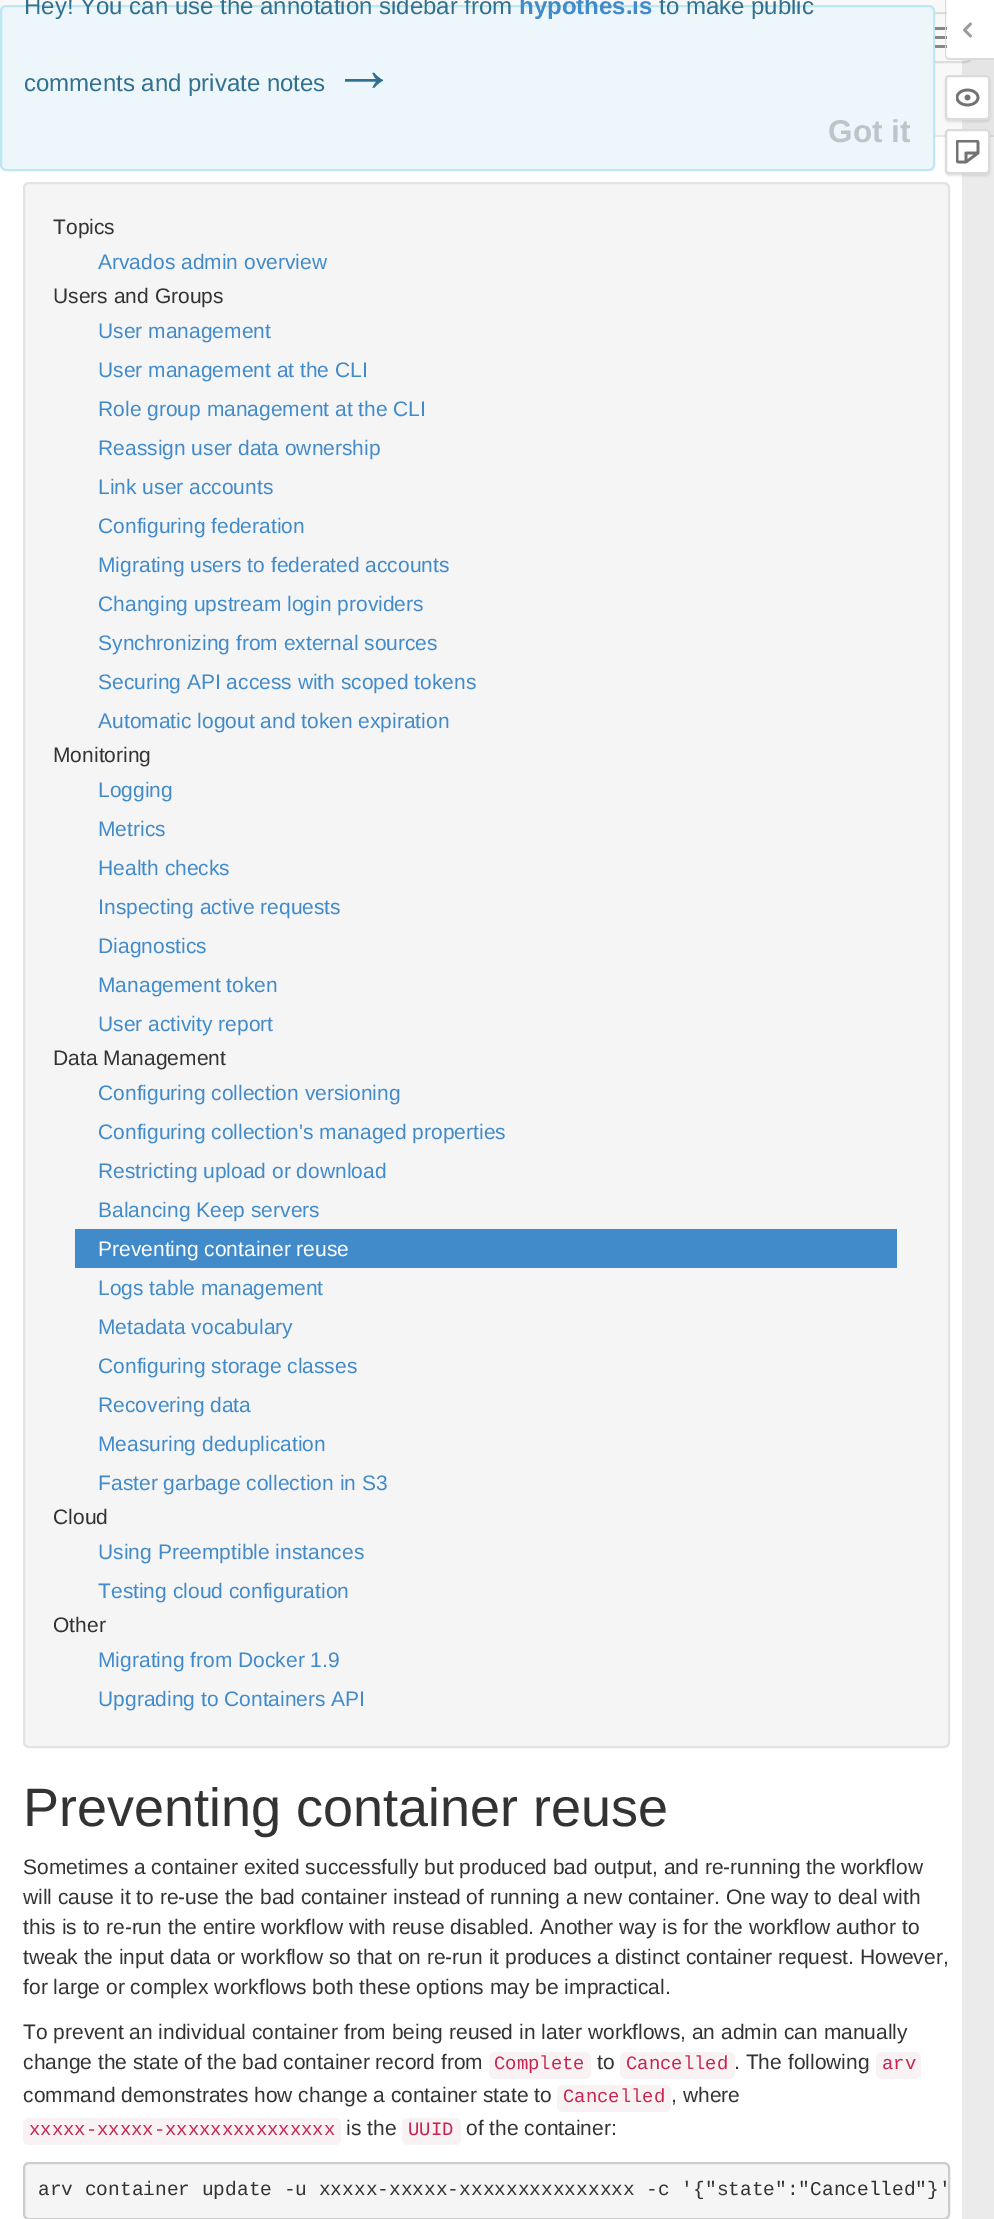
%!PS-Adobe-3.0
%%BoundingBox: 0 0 994 2219
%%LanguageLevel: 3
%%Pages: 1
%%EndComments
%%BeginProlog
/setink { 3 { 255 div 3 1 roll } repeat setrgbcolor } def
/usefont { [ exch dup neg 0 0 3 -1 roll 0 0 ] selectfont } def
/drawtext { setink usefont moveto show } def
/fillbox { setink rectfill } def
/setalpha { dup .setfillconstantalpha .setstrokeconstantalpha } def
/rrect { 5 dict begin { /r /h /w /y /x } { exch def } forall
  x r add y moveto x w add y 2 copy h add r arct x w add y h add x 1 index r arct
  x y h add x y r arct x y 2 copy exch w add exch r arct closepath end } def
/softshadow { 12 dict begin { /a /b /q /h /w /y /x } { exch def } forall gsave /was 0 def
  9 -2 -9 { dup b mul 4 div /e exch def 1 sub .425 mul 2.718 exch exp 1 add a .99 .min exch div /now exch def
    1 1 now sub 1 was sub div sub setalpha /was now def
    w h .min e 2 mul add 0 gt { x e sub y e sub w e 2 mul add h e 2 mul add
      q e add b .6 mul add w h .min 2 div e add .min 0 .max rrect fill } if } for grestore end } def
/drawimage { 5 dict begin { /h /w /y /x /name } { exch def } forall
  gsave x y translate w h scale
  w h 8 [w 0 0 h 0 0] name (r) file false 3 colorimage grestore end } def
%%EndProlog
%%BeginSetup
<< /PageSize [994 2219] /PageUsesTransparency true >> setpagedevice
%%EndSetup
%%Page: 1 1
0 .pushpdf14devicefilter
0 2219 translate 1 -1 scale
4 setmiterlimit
0 0 994 2219 255 255 255 fillbox
0 0 994 135 248 248 248 fillbox
935 135 59 2 231 231 231 fillbox
221 221 221 setink
2 setlinewidth
907 13 64 49 5 rrect stroke
237 246 250 setink
1 6 933 164 5 rrect gsave fill grestore
188 232 241 setink
stroke
(Hey! You can use the annotation sidebar from) 24 14 /LiberationSans-Regular 24 49 112 143 drawtext
(hypothes.is) 519 14 /LiberationSans-Bold 24 66 139 202 drawtext
(to make public) 659 14 /LiberationSans-Regular 24 49 112 143 drawtext
(comments and private notes) 24 91 /LiberationSans-Regular 24 49 112 143 drawtext
(→) 332 91 /LiberationSans-Regular 64 49 112 143 drawtext
(Got it) 828 142 /LiberationSans-Bold 31.5 190 197 200 drawtext
935 27 12 3 136 136 136 fillbox
935 36 12 3 136 136 136 fillbox
935 45 12 3 136 136 136 fillbox
0.08 setalpha
962 60 32 2159 0 0 0 fillbox
1 setalpha
255 255 255 setink
947 0 moveto 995 0 lineto 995 59 lineto 949 59 lineto 948 59 947 58 947 57 curveto closepath fill
219 219 219 setink
945 0 moveto 994 0 lineto 994 60 lineto 949 60 lineto 947 60 945 58 945 56 curveto closepath 946 0 moveto 994 0 lineto 994 58 lineto 949 58 lineto 948 58 946 57 946 56 curveto closepath eofill
(assets/img1.rgb) 963 22 9 16 drawimage
0 0 0 setink
945 77 45 45 4 1 0.1 softshadow
255 255 255 setink
946 76 43 43 3 rrect gsave fill grestore
219 219 219 setink
stroke
(assets/img2.rgb) 956 88 24 19 drawimage
0 0 0 setink
945 131 45 45 4 1 0.1 softshadow
255 255 255 setink
946 130 43 43 3 rrect gsave fill grestore
219 219 219 setink
stroke
(assets/img3.rgb) 956 140 24 24 drawimage
245 245 245 setink
23 182 927 1566 6 rrect fill
233 233 233 setink
28 184 moveto 944 184 lineto 946 184 948 187 948 189 curveto 948 186 946 183 943 183 curveto 29 183 lineto 26 183 24 186 24 189 curveto 24 187 26 184 28 184 curveto closepath fill
227 227 227 setink
24 183 925 1564 5 rrect stroke
(Topics) 53 234 /LiberationSans-Regular 21 51 51 51 drawtext
(Arvados admin overview) 98 269 /LiberationSans-Regular 21 66 139 202 drawtext
(Users and Groups) 53 303 /LiberationSans-Regular 21 51 51 51 drawtext
(User management) 98 338 /LiberationSans-Regular 21 66 139 202 drawtext
(User management at the CLI) 98 377 /LiberationSans-Regular 21 66 139 202 drawtext
(Role group management at the CLI) 98 416 /LiberationSans-Regular 21 66 139 202 drawtext
(Reassign user data ownership) 98 455 /LiberationSans-Regular 21 66 139 202 drawtext
(Link user accounts) 98 494 /LiberationSans-Regular 21 66 139 202 drawtext
(Configuring federation) 98 533 /LiberationSans-Regular 21 66 139 202 drawtext
(Migrating users to federated accounts) 98 572 /LiberationSans-Regular 21 66 139 202 drawtext
(Changing upstream login providers) 98 611 /LiberationSans-Regular 21 66 139 202 drawtext
(Synchronizing from external sources) 98 650 /LiberationSans-Regular 21 66 139 202 drawtext
(Securing API access with scoped tokens) 98 689 /LiberationSans-Regular 21 66 139 202 drawtext
(Automatic logout and token expiration) 98 728 /LiberationSans-Regular 21 66 139 202 drawtext
(Monitoring) 53 762 /LiberationSans-Regular 21 51 51 51 drawtext
(Logging) 98 797 /LiberationSans-Regular 21 66 139 202 drawtext
(Metrics) 98 836 /LiberationSans-Regular 21 66 139 202 drawtext
(Health checks) 98 875 /LiberationSans-Regular 21 66 139 202 drawtext
(Inspecting active requests) 98 914 /LiberationSans-Regular 21 66 139 202 drawtext
(Diagnostics) 98 953 /LiberationSans-Regular 21 66 139 202 drawtext
(Management token) 98 992 /LiberationSans-Regular 21 66 139 202 drawtext
(User activity report) 98 1031 /LiberationSans-Regular 21 66 139 202 drawtext
(Data Management) 53 1065 /LiberationSans-Regular 21 51 51 51 drawtext
(Configuring collection versioning) 98 1100 /LiberationSans-Regular 21 66 139 202 drawtext
(Configuring collection's managed properties) 98 1139 /LiberationSans-Regular 21 66 139 202 drawtext
(Restricting upload or download) 98 1178 /LiberationSans-Regular 21 66 139 202 drawtext
(Balancing Keep servers) 98 1217 /LiberationSans-Regular 21 66 139 202 drawtext
75 1229 822 39 66 139 202 fillbox
(Preventing container reuse) 98 1256 /LiberationSans-Regular 21 255 255 255 drawtext
(Logs table management) 98 1295 /LiberationSans-Regular 21 66 139 202 drawtext
(Metadata vocabulary) 98 1334 /LiberationSans-Regular 21 66 139 202 drawtext
(Configuring storage classes) 98 1373 /LiberationSans-Regular 21 66 139 202 drawtext
(Recovering data) 98 1412 /LiberationSans-Regular 21 66 139 202 drawtext
(Measuring deduplication) 98 1451 /LiberationSans-Regular 21 66 139 202 drawtext
(Faster garbage collection in S3) 98 1490 /LiberationSans-Regular 21 66 139 202 drawtext
(Cloud) 53 1524 /LiberationSans-Regular 21 51 51 51 drawtext
(Using Preemptible instances) 98 1559 /LiberationSans-Regular 21 66 139 202 drawtext
(Testing cloud configuration) 98 1598 /LiberationSans-Regular 21 66 139 202 drawtext
(Other) 53 1632 /LiberationSans-Regular 21 51 51 51 drawtext
(Migrating from Docker 1.9) 98 1667 /LiberationSans-Regular 21 66 139 202 drawtext
(Upgrading to Containers API) 98 1706 /LiberationSans-Regular 21 66 139 202 drawtext
(Preventing container reuse) 23 1826 /LiberationSans-Regular 54 51 51 51 drawtext
(Sometimes a container exited successfully but produced bad output, and re-running the workflow) 23 1874 /LiberationSans-Regular 21 51 51 51 drawtext
(will cause it to re-use the bad container instead of running a new container. One way to deal with) 23 1904 /LiberationSans-Regular 21 51 51 51 drawtext
(this is to re-run the entire workflow with reuse disabled. Another way is for the workflow author to) 23 1934 /LiberationSans-Regular 21 51 51 51 drawtext
(tweak the input data or workflow so that on re-run it produces a distinct container request. However,) 23 1964 /LiberationSans-Regular 21 51 51 51 drawtext
(for large or complex workflows both these options may be impractical.) 23 1994 /LiberationSans-Regular 21 51 51 51 drawtext
(To prevent an individual container from being reused in later workflows, an admin can manually) 23 2039 /LiberationSans-Regular 21 51 51 51 drawtext
(change the state of the bad container record from) 23 2069 /LiberationSans-Regular 21 51 51 51 drawtext
249 242 244 setink
489 2052 102 27 6 rrect fill
(Complete) 494 2069 /LiberationMono-Regular 18.9 199 37 78 drawtext
(to) 597 2069 /LiberationSans-Regular 21 51 51 51 drawtext
249 242 244 setink
620 2052 115 27 6 rrect fill
(Cancelled) 626 2069 /LiberationMono-Regular 18.9 199 37 78 drawtext
(. The following) 734 2069 /LiberationSans-Regular 21 51 51 51 drawtext
249 242 244 setink
876 2052 45 27 6 rrect fill
(arv) 882 2069 /LiberationMono-Regular 18.9 199 37 78 drawtext
(command demonstrates how change a container state to) 23 2102 /LiberationSans-Regular 21 51 51 51 drawtext
249 242 244 setink
557 2085 114 27 6 rrect fill
(Cancelled) 563 2102 /LiberationMono-Regular 18.9 199 37 78 drawtext
(, where) 671 2102 /LiberationSans-Regular 21 51 51 51 drawtext
249 242 244 setink
23 2118 318 27 6 rrect fill
(xxxxx-xxxxx-xxxxxxxxxxxxxxx) 29 2135 /LiberationMono-Regular 18.9 199 37 78 drawtext
(is the) 346 2135 /LiberationSans-Regular 21 51 51 51 drawtext
249 242 244 setink
402 2118 59 27 6 rrect fill
(UUID) 408 2135 /LiberationMono-Regular 18.9 199 37 78 drawtext
(of the container:) 466 2135 /LiberationSans-Regular 21 51 51 51 drawtext
245 245 245 setink
24 2163 925 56 5 rrect gsave fill grestore
204 204 204 setink
stroke
(arv container update -u xxxxx-xxxxx-xxxxxxxxxxxxxxx -c '{"state":"Cancelled"}') 38 2195 /LiberationMono-Regular 19.5 51 51 51 drawtext
.poppdf14devicefilter showpage
%%EOF
